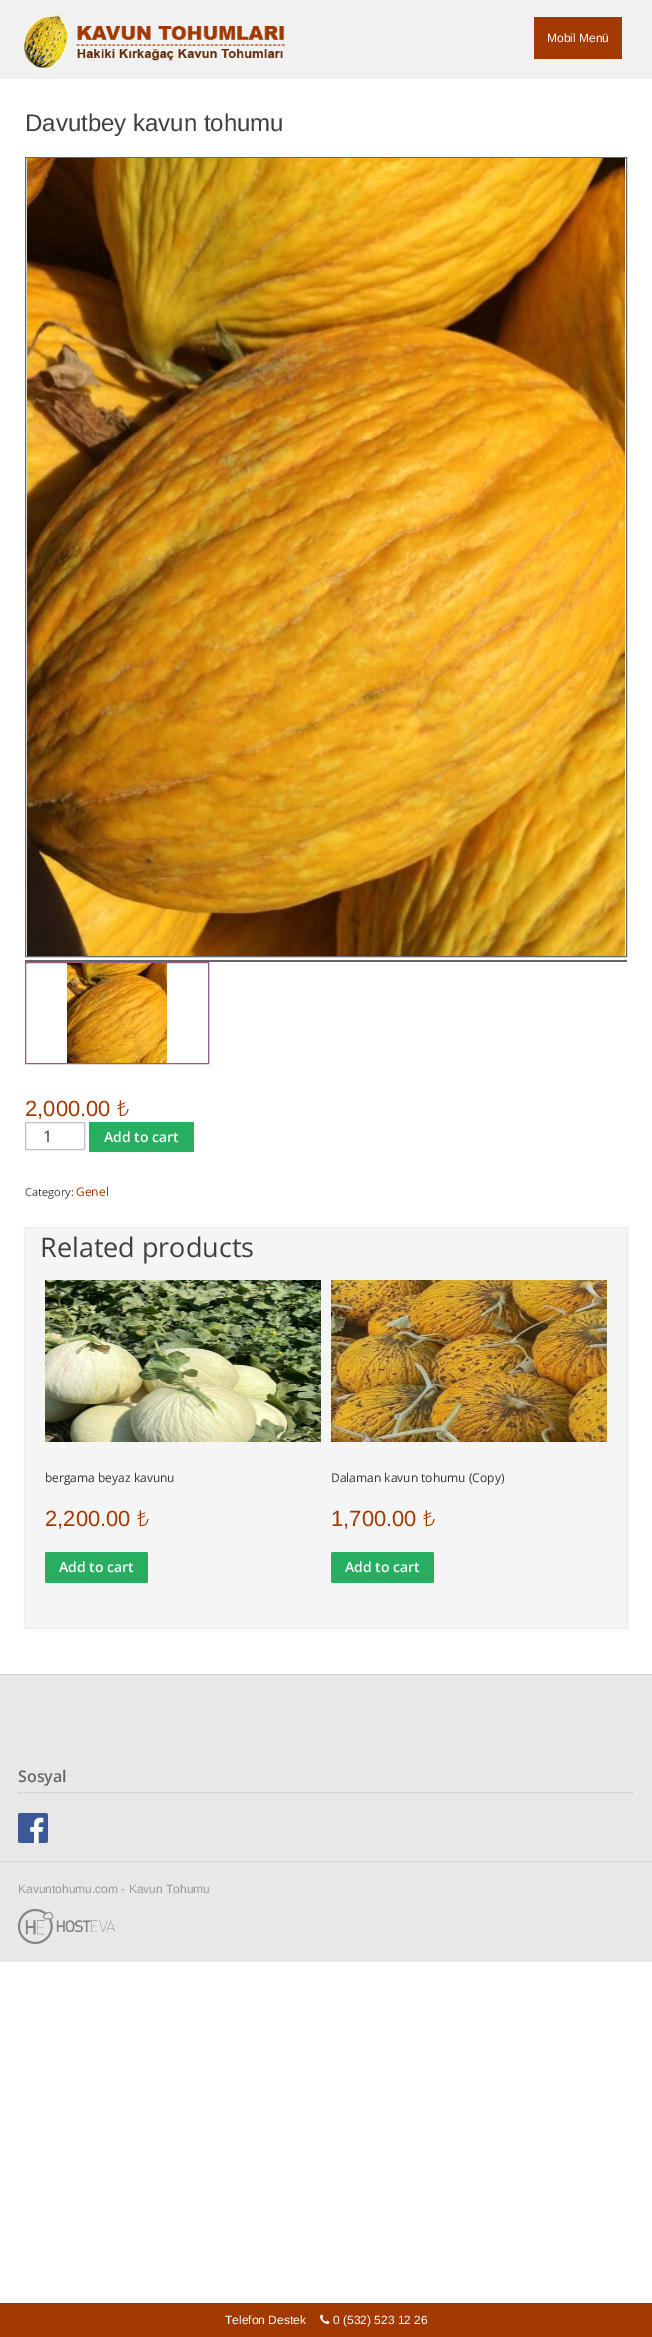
%!PS-Adobe-3.0
%%BoundingBox: 0 0 652 2337
%%LanguageLevel: 3
%%Pages: 1
%%EndComments
%%BeginProlog
/setink { 3 { 255 div 3 1 roll } repeat setrgbcolor } def
/usefont { [ exch dup neg 0 0 3 -1 roll 0 0 ] selectfont } def
/drawtext { setink usefont moveto show } def
/fillbox { setink rectfill } def
/setalpha { dup .setfillconstantalpha .setstrokeconstantalpha } def
/rrect { 5 dict begin { /r /h /w /y /x } { exch def } forall
  x r add y moveto x w add y 2 copy h add r arct x w add y h add x 1 index r arct
  x y h add x y r arct x y 2 copy exch w add exch r arct closepath end } def
/softshadow { 12 dict begin { /a /b /q /h /w /y /x } { exch def } forall gsave /was 0 def
  9 -2 -9 { dup b mul 4 div /e exch def 1 sub .425 mul 2.718 exch exp 1 add a .99 .min exch div /now exch def
    1 1 now sub 1 was sub div sub setalpha /was now def
    w h .min e 2 mul add 0 gt { x e sub y e sub w e 2 mul add h e 2 mul add
      q e add b .6 mul add w h .min 2 div e add .min 0 .max rrect fill } if } for grestore end } def
/drawimage { 5 dict begin { /h /w /y /x /name } { exch def } forall
  gsave x y translate w h scale
  w h 8 [w 0 0 h 0 0] name (r) file false 3 colorimage grestore end } def
%%EndProlog
%%BeginSetup
<< /PageSize [652 2337] /PageUsesTransparency true >> setpagedevice
%%EndSetup
%%Page: 1 1
0 .pushpdf14devicefilter
0 2337 translate 1 -1 scale
4 setmiterlimit
0 0 652 2337 255 255 255 fillbox
0 0 652 79 241 241 241 fillbox
(assets/img1.rgb) 22 14 263 56 drawimage
534 17 88 42 162 57 0 fillbox
(Mobil Menü) 547 42 /LiberationSans-Regular 12 255 255 255 drawtext
(Davutbey kavun tohumu) 25 131 /LiberationSans-Regular 24 64 64 64 drawtext
102 102 102 setink
25.5 157.5 601 799 rectstroke
(assets/img2.rgb) 27 158 598 798 drawimage
25 960 602 2 102 102 102 fillbox
150 88 138 setink
25.5 962.5 183 101 rectstroke
(assets/img3.rgb) 67 963 100 100 drawimage
(2,000.00) 25 1116 /LiberationSans-Regular 22 162 57 0 drawtext
(₺) 117 1116 /NotoSans-Light 22 162 57 0 drawtext
192 192 192 setink
25.5 1122.5 59 27 0.5 rrect stroke
(1) 43 1142 /OpenSans-Regular 16 64 64 64 drawtext
39 174 96 setink
89 1122 105 30 1 rrect fill
(Add to cart) 104 1142 /OpenSans-SemiBold 14 255 255 255 drawtext
(Category:) 25 1196 /OpenSans-Regular 11 64 64 64 drawtext
(Genel) 76 1196 /OpenSans-Regular 12 162 57 0 drawtext
192 192 192 setink
25 1228 602 400 0 1 1 softshadow
25 1228 602 400 245 245 245 fillbox
(Related products) 40 1257 /OpenSans-Regular 27 64 64 64 drawtext
(assets/img4.rgb) 45 1280 276 162 drawimage
(bergama beyaz kavunu) 45 1482 /OpenSans-Regular 12 51 51 51 drawtext
(2,200.00) 45 1526 /LiberationSans-Regular 22 162 57 0 drawtext
(₺) 137 1526 /NotoSans-Light 22 162 57 0 drawtext
39 174 96 setink
45 1552 103 31 2 rrect fill
(Add to cart) 59 1572 /OpenSans-SemiBold 14 255 255 255 drawtext
(assets/img5.rgb) 331 1280 276 162 drawimage
(Dalaman kavun tohumu \(Copy\)) 331 1482 /OpenSans-Regular 12 51 51 51 drawtext
(1,700.00) 331 1526 /LiberationSans-Regular 22 162 57 0 drawtext
(₺) 423 1526 /NotoSans-Light 22 162 57 0 drawtext
39 174 96 setink
331 1552 103 31 2 rrect fill
(Add to cart) 345 1572 /OpenSans-SemiBold 14 255 255 255 drawtext
0 1675 652 287 232 232 232 fillbox
0 1674 652 1 203 203 203 fillbox
192 192 192 setink
[1 1] 0 setdash
18 1792.5 moveto 634 1792.5 lineto stroke
(Sosyal) 18 1782 /OpenSans-SemiBold 16 102 102 102 drawtext
(assets/img6.rgb) 18 1813 30 30 drawimage
0 1861 652 1 213 213 213 fillbox
(Kavuntohumu.com - Kavun Tohumu) 18 1893 /LiberationSans-Regular 12 153 153 153 drawtext
(assets/img7.rgb) 18 1909 97 35 drawimage
0 2303 652 34 162 57 0 fillbox
(Telefon Destek) 225 2324 /LiberationSans-Regular 12 255 255 255 drawtext
(assets/img8.rgb) 320 2314 10 10 drawimage
(0 \(532\) 523 12 26) 333 2324 /LiberationSans-Regular 12 255 255 255 drawtext
.poppdf14devicefilter showpage
%%EOF
